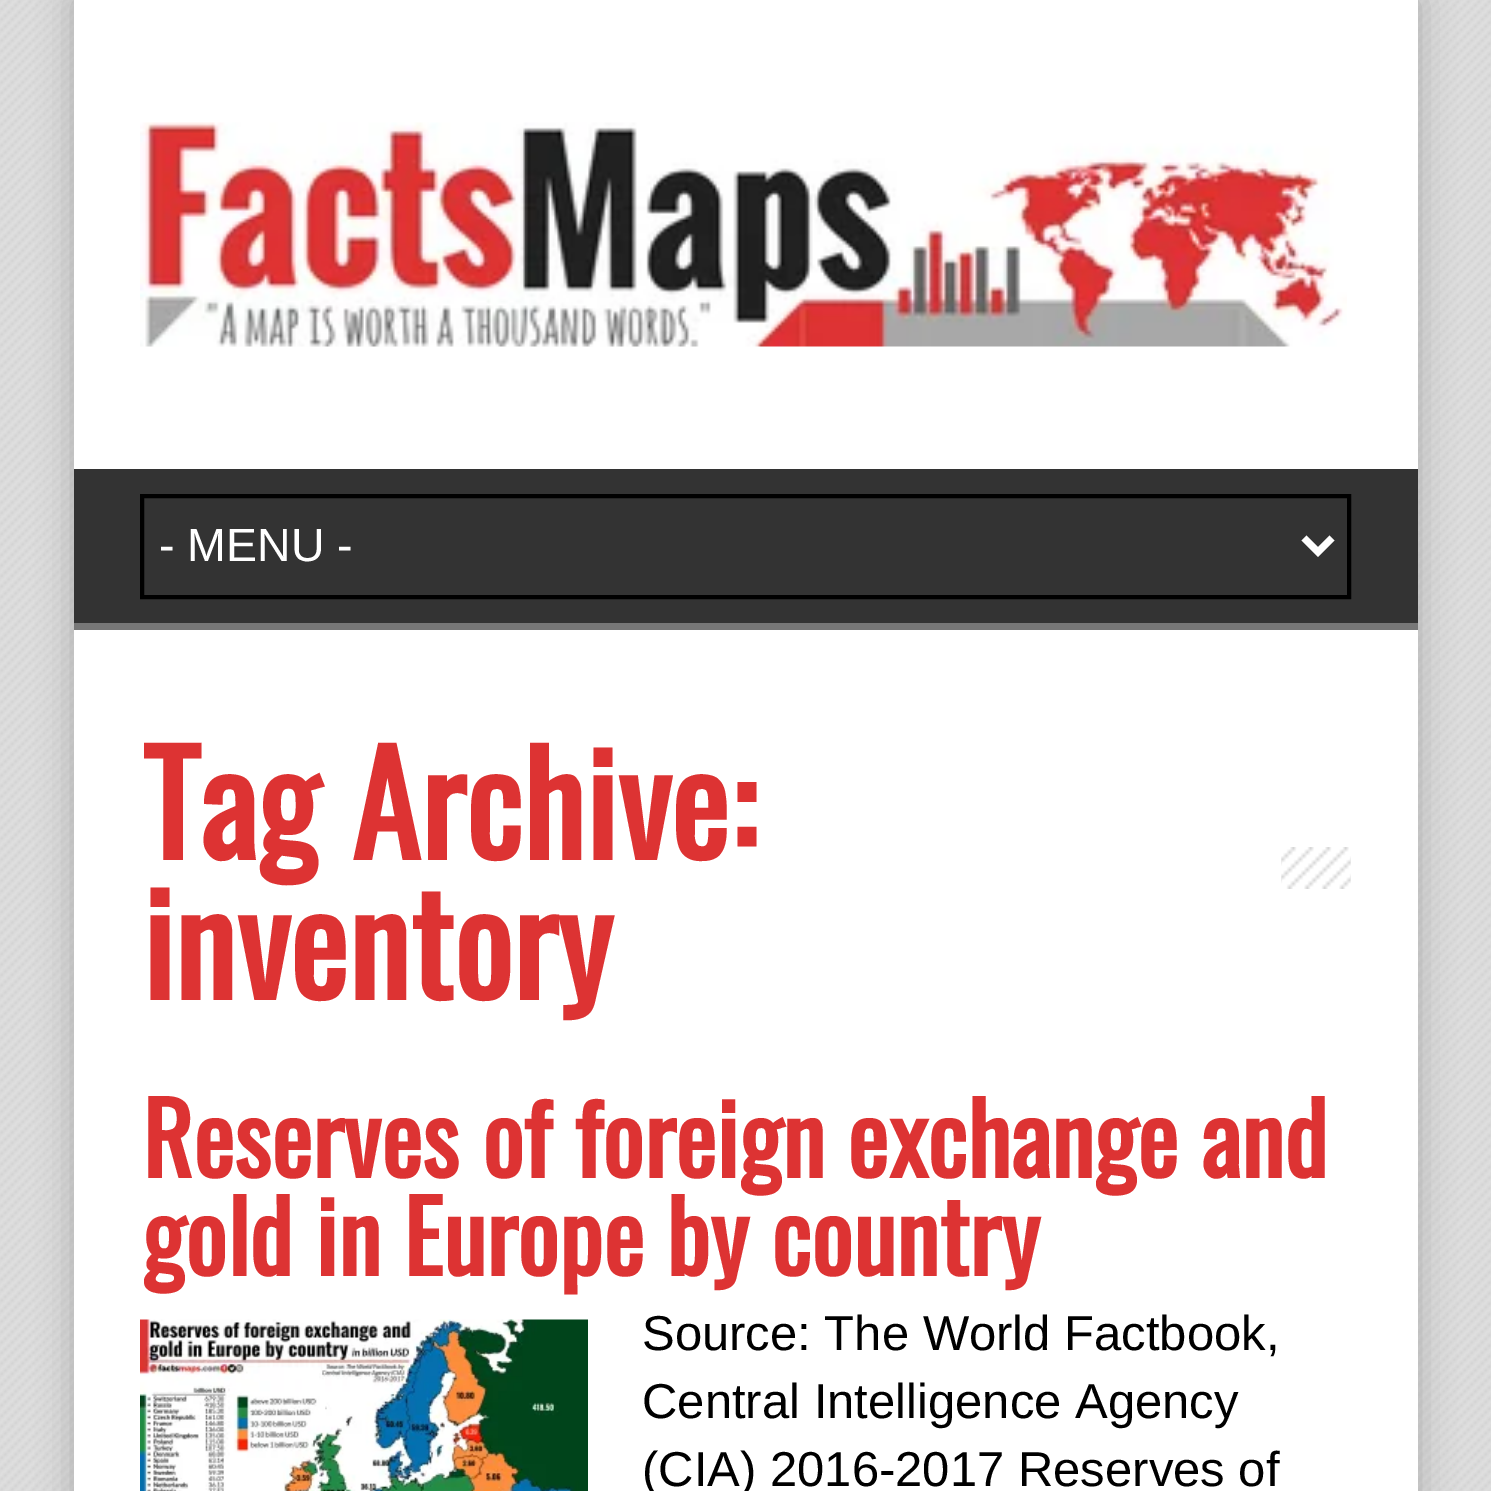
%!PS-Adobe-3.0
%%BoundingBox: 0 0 1491 1491
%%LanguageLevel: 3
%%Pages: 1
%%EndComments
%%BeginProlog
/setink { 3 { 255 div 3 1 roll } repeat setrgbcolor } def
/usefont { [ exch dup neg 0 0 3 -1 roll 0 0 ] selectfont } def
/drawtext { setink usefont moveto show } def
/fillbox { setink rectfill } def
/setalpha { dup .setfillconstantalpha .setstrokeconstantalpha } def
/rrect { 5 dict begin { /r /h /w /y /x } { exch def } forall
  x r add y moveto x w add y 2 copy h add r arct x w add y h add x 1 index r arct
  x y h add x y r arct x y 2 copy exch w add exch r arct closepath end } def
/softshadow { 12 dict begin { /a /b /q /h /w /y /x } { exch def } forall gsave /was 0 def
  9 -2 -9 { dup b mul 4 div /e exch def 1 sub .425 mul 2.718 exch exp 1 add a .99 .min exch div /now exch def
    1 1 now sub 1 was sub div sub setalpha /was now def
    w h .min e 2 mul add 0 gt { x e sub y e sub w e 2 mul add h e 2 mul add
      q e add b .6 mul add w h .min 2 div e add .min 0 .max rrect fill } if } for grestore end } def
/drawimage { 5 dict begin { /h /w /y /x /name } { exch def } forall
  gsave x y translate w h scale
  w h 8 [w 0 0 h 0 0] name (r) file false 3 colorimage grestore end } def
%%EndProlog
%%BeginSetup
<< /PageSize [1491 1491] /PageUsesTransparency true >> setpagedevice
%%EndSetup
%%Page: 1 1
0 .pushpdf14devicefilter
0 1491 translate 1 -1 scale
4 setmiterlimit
0 0 1491 1491 222 222 222 fillbox
(assets/img1.rgb) 0 0 1491 1491 drawimage
170 170 170 setink
74 0 1344 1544 0 17.5 1 softshadow
74 0 1344 1491 255 255 255 fillbox
(assets/img2.rgb) 140 122 1207 225 drawimage
74 469 1344 154 51 51 51 fillbox
74 623 1344 7 119 119 119 fillbox
0 0 0 setink
4 setlinewidth
142 496 1207 101 rectstroke
255 255 255 setink
7 setlinewidth
1304 538 moveto 1318 552 lineto 1332 538 lineto stroke
(- MENU -) 159 561 /LiberationSans-Regular 46.5 255 255 255 drawtext
(assets/img3.rgb) 1281 847 70 42 drawimage
(Tag Archive:) 142 860 /Oswald-Bold 140 221 51 51 drawtext
(inventory) 142 1000 /Oswald-Bold 140 221 51 51 drawtext
(Reserves of foreign exchange and) 142 1178 /Oswald-Bold 98 221 51 51 drawtext
(gold in Europe by country) 142 1276 /Oswald-Bold 98 221 51 51 drawtext
(assets/img4.rgb) 140 1319 448 172 drawimage
(Source: The World Factbook,) 642 1350 /LiberationSans-Regular 49 0 0 0 drawtext
(Central Intelligence Agency) 642 1418 /LiberationSans-Regular 49 0 0 0 drawtext
(\(CIA\) 2016-2017 Reserves of) 642 1486 /LiberationSans-Regular 49 0 0 0 drawtext
.poppdf14devicefilter showpage
%%EOF
